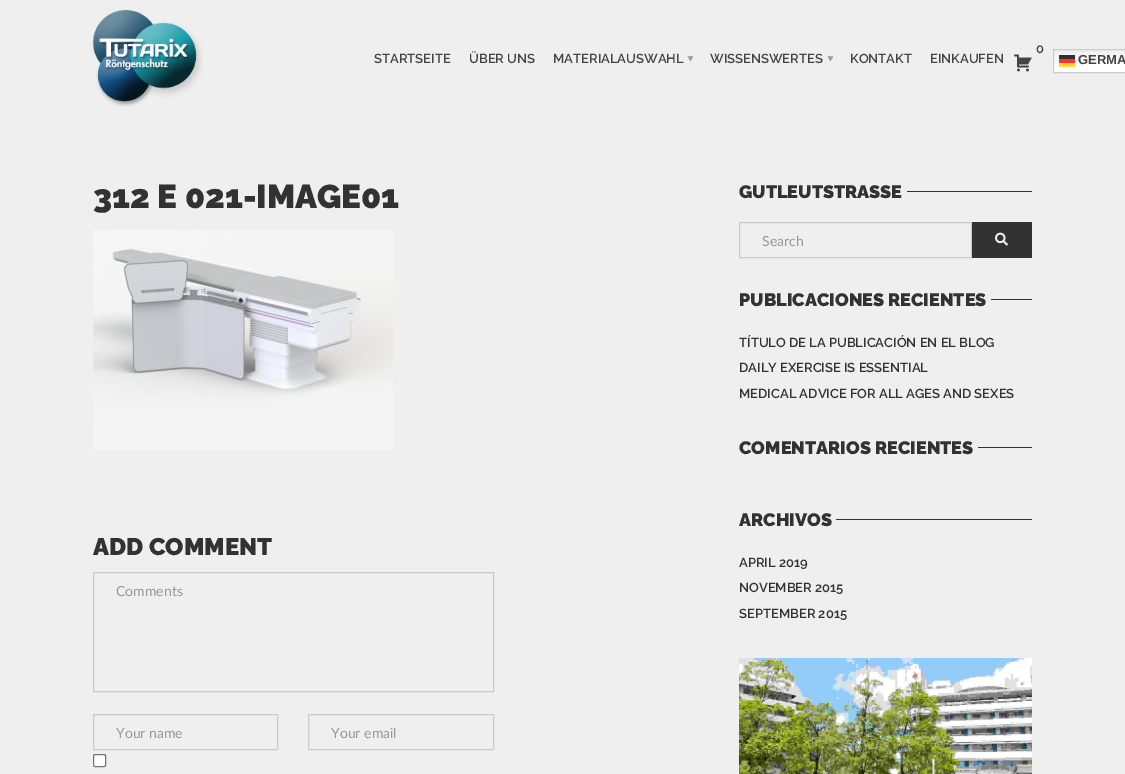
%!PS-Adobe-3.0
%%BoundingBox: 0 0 1125 774
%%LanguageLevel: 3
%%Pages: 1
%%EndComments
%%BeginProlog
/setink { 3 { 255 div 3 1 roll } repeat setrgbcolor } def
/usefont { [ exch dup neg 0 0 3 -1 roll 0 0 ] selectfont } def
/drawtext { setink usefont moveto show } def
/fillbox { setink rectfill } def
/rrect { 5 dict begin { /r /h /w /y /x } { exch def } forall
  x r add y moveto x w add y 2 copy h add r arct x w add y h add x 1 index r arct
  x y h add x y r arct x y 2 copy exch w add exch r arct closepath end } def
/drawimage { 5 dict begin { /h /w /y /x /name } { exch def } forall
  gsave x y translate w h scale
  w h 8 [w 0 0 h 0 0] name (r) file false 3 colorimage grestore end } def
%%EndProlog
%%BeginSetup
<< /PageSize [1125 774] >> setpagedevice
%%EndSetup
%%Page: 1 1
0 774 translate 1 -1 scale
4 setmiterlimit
0 0 1125 774 239 239 239 fillbox
(assets/img1.rgb) 92 10 111 97 drawimage
(0) 1036 53 /Raleway-SemiBold 13 68 68 68 drawtext
(assets/img2.rgb) 1014 54 18 18 drawimage
(STARTSEITE) 374 63 /Raleway-SemiBold 13 68 68 68 drawtext
(ÜBER UNS) 469 63 /Raleway-SemiBold 13 68 68 68 drawtext
(MATERIALAUSWAHL) 553 63 /Raleway-SemiBold 13 68 68 68 drawtext
/NotoSans-Regular 20 usefont
153 153 153 setink
gsave 683 55 translate 90 rotate 0 0 moveto (‣) show grestore
(WISSENSWERTES) 710 63 /Raleway-SemiBold 13 68 68 68 drawtext
/NotoSans-Regular 20 usefont
153 153 153 setink
gsave 823 55 translate 90 rotate 0 0 moveto (‣) show grestore
(KONTAKT) 850 63 /Raleway-SemiBold 13 68 68 68 drawtext
(EINKAUFEN) 930 63 /Raleway-SemiBold 13 68 68 68 drawtext
gsave 1054 52 moveto 1125 52 lineto 1125 72 lineto 1054 72 lineto closepath clip newpath
<< /ShadingType 2 /ColorSpace /DeviceRGB /Coords [1115 49 1115 73] /Extend [true true] /Function << /FunctionType 3 /Domain [0 1] /Functions [<< /FunctionType 2 /Domain [0 1] /C0 [0.937 0.937 0.937] /C1 [1 1 1] /N 1 >> << /FunctionType 2 /Domain [0 1] /C0 [1 1 1] /C1 [1 1 1] /N 1 >>] /Bounds [0.7] /Encode [0 1 0 1] >> >> shfill grestore
gsave 1059 59 moveto 1075 59 lineto 1075 63 lineto 1059 63 lineto closepath clip newpath
<< /ShadingType 2 /ColorSpace /DeviceRGB /Coords [1115 49 1115 73] /Extend [true true] /Function << /FunctionType 3 /Domain [0 1] /Functions [<< /FunctionType 2 /Domain [0 1] /C0 [0.988 0.188 0.188] /C1 [1 0.2 0.2] /N 1 >> << /FunctionType 2 /Domain [0 1] /C0 [1 0.2 0.2] /C1 [1 0.2 0.2] /N 1 >>] /Bounds [0.7] /Encode [0 1 0 1] >> >> shfill grestore
gsave 1059 55 moveto 1075 55 lineto 1075 59 lineto 1059 59 lineto closepath clip newpath
<< /ShadingType 2 /ColorSpace /DeviceRGB /Coords [1115 49 1115 73] /Extend [true true] /Function << /FunctionType 3 /Domain [0 1] /Functions [<< /FunctionType 2 /Domain [0 1] /C0 [0.188 0.188 0.188] /C1 [0.2 0.2 0.2] /N 1 >> << /FunctionType 2 /Domain [0 1] /C0 [0.2 0.2 0.2] /C1 [0.2 0.2 0.2] /N 1 >>] /Bounds [0.7] /Encode [0 1 0 1] >> >> shfill grestore
204 204 204 setink
1053.5 49.5 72 23 rectstroke
1059 63 16 4 255 214 51 fillbox
(GERMA) 1078 64 /LiberationSans-Bold 13 68 68 68 drawtext
(312 E 021-IMAGE01) 93 208 /Raleway-Black 33 50 50 50 drawtext
(assets/img3.rgb) 93 230 300 220 drawimage
(ADD COMMENT) 93 555 /Raleway-Black 24 50 50 50 drawtext
203 203 203 setink
93.5 572.5 400 119 rectstroke
(Comments) 116 596 /Lato-Regular 14 153 153 153 drawtext
203 203 203 setink
93.5 714.5 184 35 rectstroke
(Your name) 116 738 /Lato-Regular 14 153 153 153 drawtext
203 203 203 setink
308.5 714.5 185 35 rectstroke
(Your email) 331 738 /Lato-Regular 14 153 153 153 drawtext
255 255 255 setink
93.5 754.5 12 12 1.5 rrect gsave fill grestore
118 118 118 setink
stroke
(GUTLEUTSTRASSE) 739 198 /Raleway-Black 18 50 50 50 drawtext
907 191 125 1 50 50 50 fillbox
203 203 203 setink
739.5 222.5 232 35 rectstroke
(Search) 762 246 /Lato-Regular 14 153 153 153 drawtext
972 222 60 36 50 50 50 fillbox
(assets/img4.rgb) 995 232 13 14 drawimage
(PUBLICACIONES RECIENTES) 739 306 /Raleway-Black 18 50 50 50 drawtext
991 299 41 1 50 50 50 fillbox
(TÍTULO DE LA PUBLICACIÓN EN EL BLOG) 739 347 /Raleway-SemiBold 13 50 50 50 drawtext
(DAILY EXERCISE IS ESSENTIAL) 739 372 /Raleway-SemiBold 13 50 50 50 drawtext
(MEDICAL ADVICE FOR ALL AGES AND SEXES) 739 398 /Raleway-SemiBold 13 50 50 50 drawtext
(COMENTARIOS RECIENTES) 739 454 /Raleway-Black 18 50 50 50 drawtext
978 447 54 1 50 50 50 fillbox
(ARCHIVOS) 739 526 /Raleway-Black 18 50 50 50 drawtext
836 519 196 1 50 50 50 fillbox
(APRIL 2019) 739 567 /Raleway-SemiBold 13 50 50 50 drawtext
(NOVEMBER 2015) 739 592 /Raleway-SemiBold 13 50 50 50 drawtext
(SEPTEMBER 2015) 739 618 /Raleway-SemiBold 13 50 50 50 drawtext
(assets/img5.rgb) 739 658 293 116 drawimage
showpage
%%EOF
